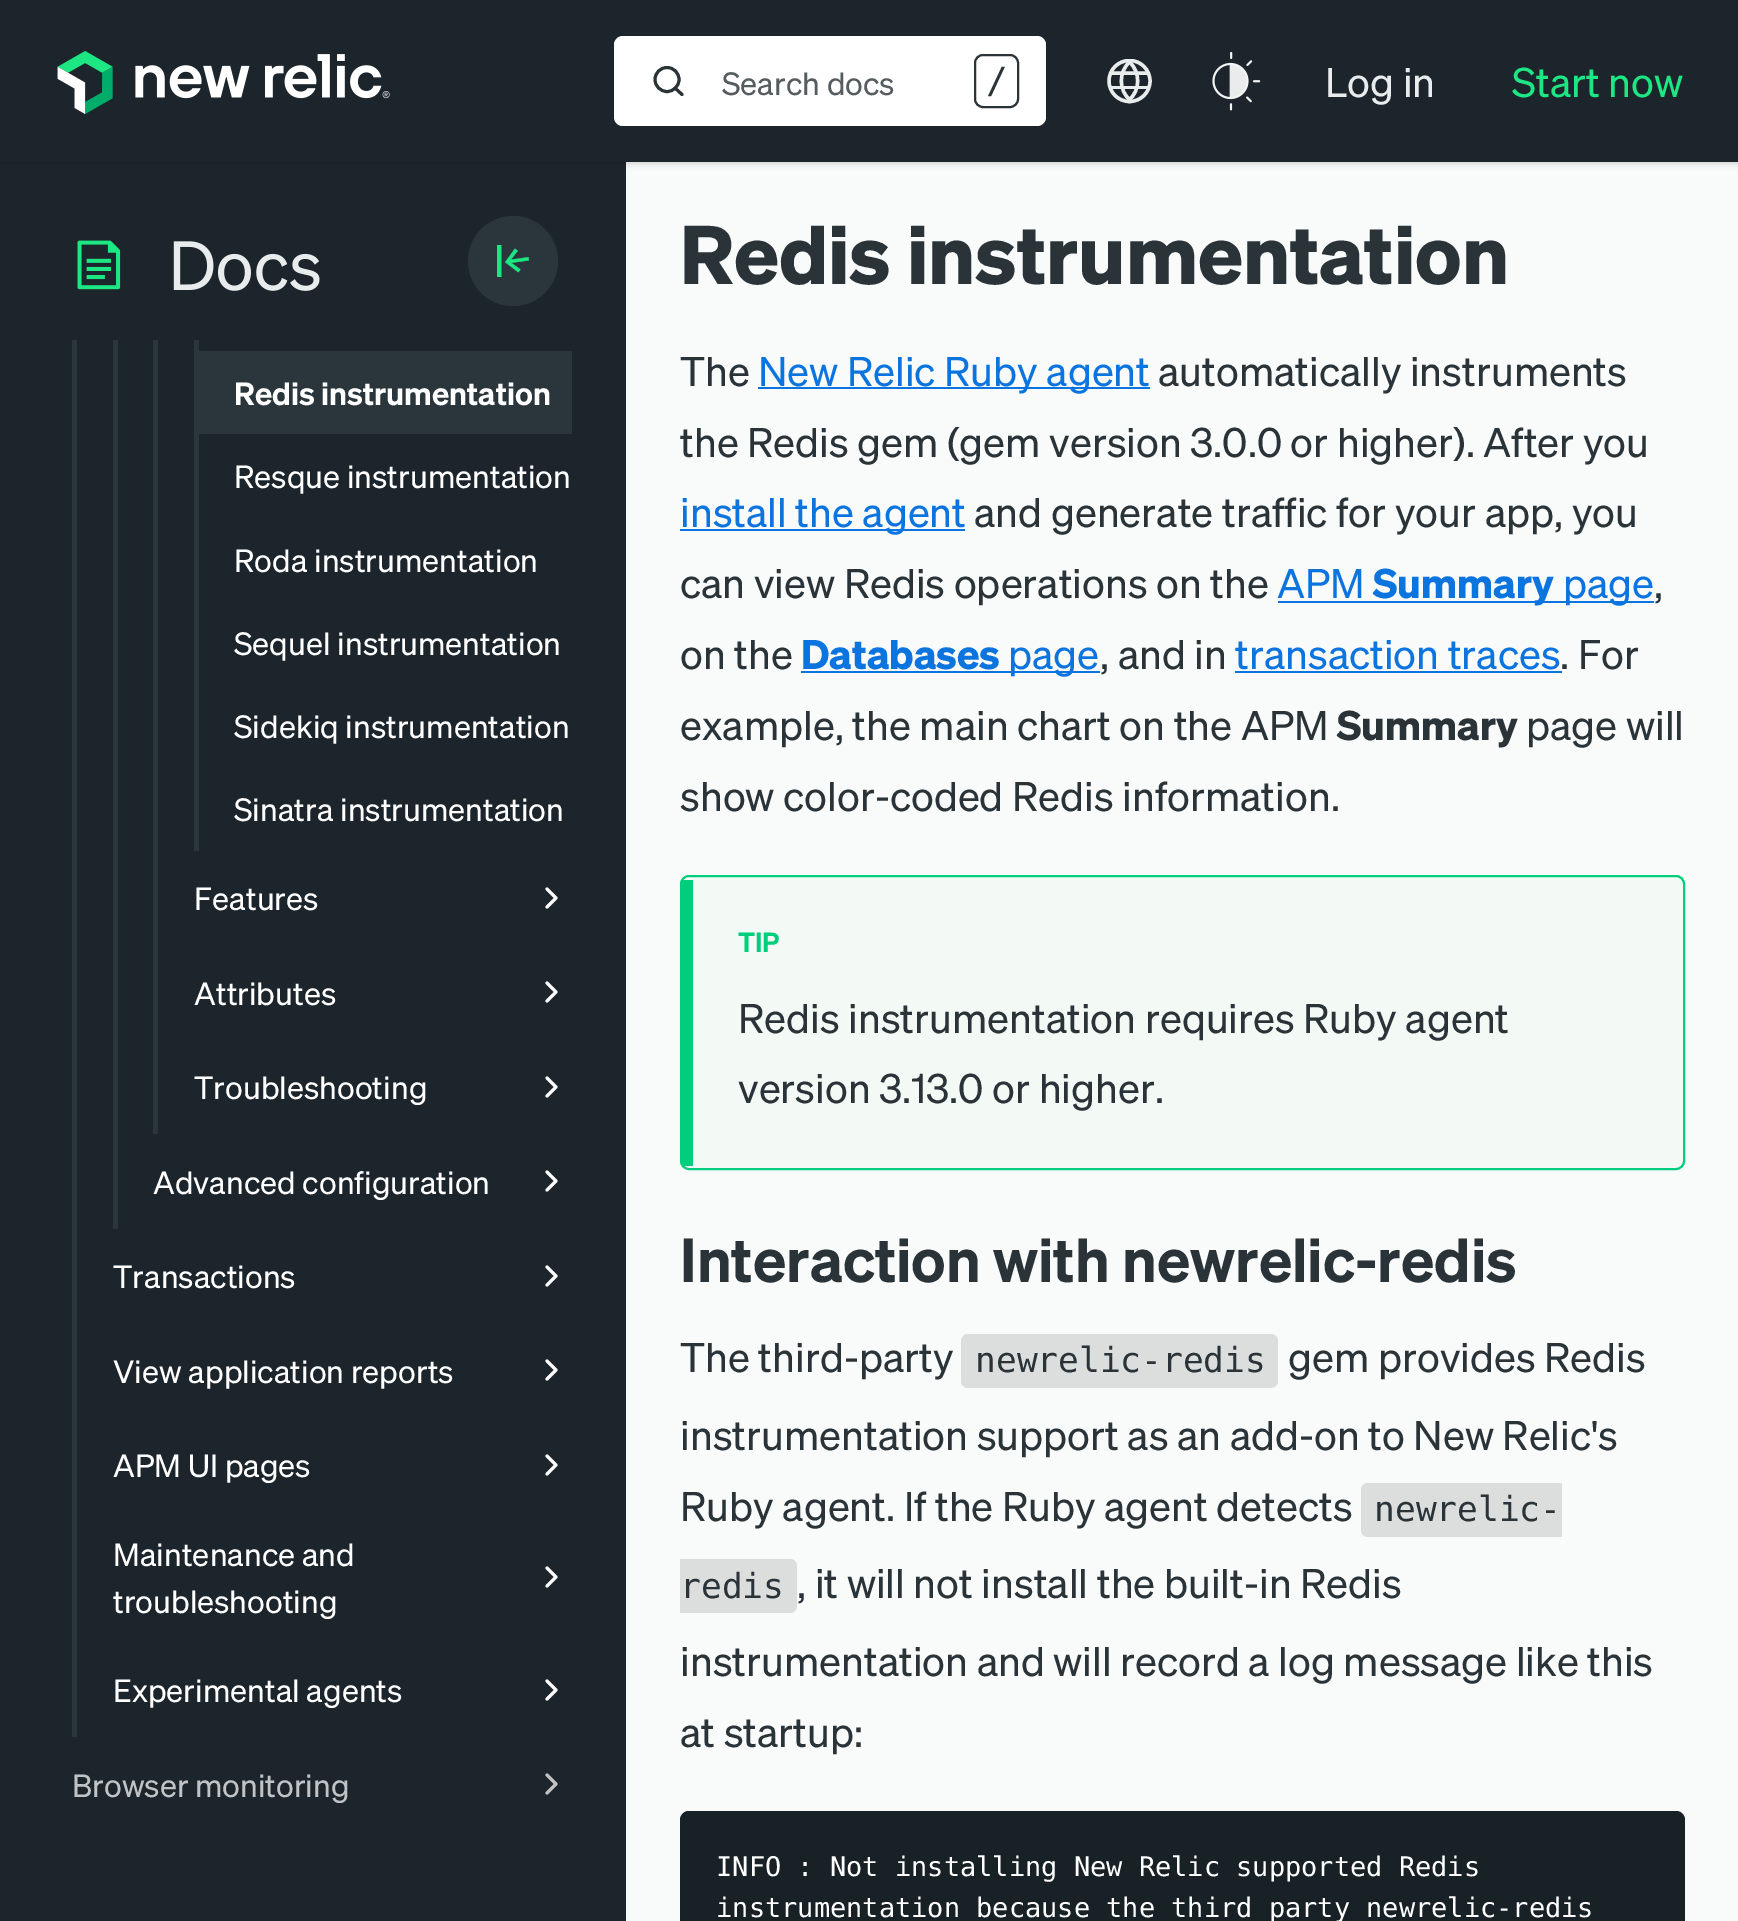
%!PS-Adobe-3.0
%%BoundingBox: 0 0 1738 1921
%%LanguageLevel: 3
%%Pages: 1
%%EndComments
%%BeginProlog
/setink { 3 { 255 div 3 1 roll } repeat setrgbcolor } def
/usefont { [ exch dup neg 0 0 3 -1 roll 0 0 ] selectfont } def
/drawtext { setink usefont moveto show } def
/fillbox { setink rectfill } def
/setalpha { dup .setfillconstantalpha .setstrokeconstantalpha } def
/disc { newpath 0 360 arc closepath } def
/rrect { 5 dict begin { /r /h /w /y /x } { exch def } forall
  x r add y moveto x w add y 2 copy h add r arct x w add y h add x 1 index r arct
  x y h add x y r arct x y 2 copy exch w add exch r arct closepath end } def
/softshadow { 12 dict begin { /a /b /q /h /w /y /x } { exch def } forall gsave /was 0 def
  9 -2 -9 { dup b mul 4 div /e exch def 1 sub .425 mul 2.718 exch exp 1 add a .99 .min exch div /now exch def
    1 1 now sub 1 was sub div sub setalpha /was now def
    w h .min e 2 mul add 0 gt { x e sub y e sub w e 2 mul add h e 2 mul add
      q e add b .6 mul add w h .min 2 div e add .min 0 .max rrect fill } if } for grestore end } def
/drawimage { 5 dict begin { /h /w /y /x /name } { exch def } forall
  gsave x y translate w h scale
  w h 8 [w 0 0 h 0 0] name (r) file false 3 colorimage grestore end } def
%%EndProlog
%%BeginSetup
<< /PageSize [1738 1921] /PageUsesTransparency true >> setpagedevice
%%EndSetup
%%Page: 1 1
0 .pushpdf14devicefilter
0 1921 translate 1 -1 scale
4 setmiterlimit
0 0 1738 1921 249 250 250 fillbox
0 162 626 1759 29 37 44 fillbox
0 0 0 setink
0 2 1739 162 0 2 0.06 softshadow
0 2 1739 162 0 3.5 0.1 softshadow
0 0 1738 162 29 37 44 fillbox
(assets/img1.rgb) 57 51 333 63 drawimage
255 255 255 setink
614 36 432 90 9 rrect fill
41 51 56 setink
3 setlinewidth
667 79.5 12 disc stroke
1 setlinecap
1 setlinejoin
682 94.5 moveto 675 88 lineto stroke
(Search docs) 722 95 /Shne-Regular 31.5 84 92 96 drawtext
41 51 56 setink
2 setlinewidth
0 setlinecap
0 setlinejoin
975 55 43 52 8 rrect stroke
(/) 986 93 /DejaVuSansMono-Regular 36 41 51 56 drawtext
gsave
1107 59 45 45 rectclip
233 236 236 setink
3.4 setlinewidth
1129.5 81 20.5 disc stroke
grestore
233 236 236 setink
3.4 setlinewidth
1130 100 moveto 1118.5 90.5 1118.5 72 1129.5 62 curveto 1129 100 moveto 1140.5 90.5 1140.5 72 1129.5 62 curveto 1111 73 moveto 1148 73 lineto stroke
1109 86 39 3 233 236 236 fillbox
(assets/img2.rgb) 1212 52 49 59 drawimage
(Log in) 1325 97 /Shne-Regular 40.5 233 236 236 drawtext
(Start now) 1512 97 /Shne-Regular 40.5 28 231 131 drawtext
42 54 60 setink
513 261 45 disc fill
(assets/img3.rgb) 497 245 33 32 drawimage
(Redis instrumentation) 680 284 /Shne-Bold 81 41 51 56 drawtext
(The) 680 386 /Shne-Regular 40.5 41 51 56 drawtext
758 387 392 2 12 116 223 fillbox
(New Relic Ruby agent) 758 386 /Shne-Regular 40.5 12 116 223 drawtext
(automatically instruments) 1158 386 /Shne-Regular 40.5 41 51 56 drawtext
(the Redis gem \(gem version 3.0.0 or higher\). After you) 680 457 /Shne-Regular 40.5 41 51 56 drawtext
680 529 285 2 12 116 223 fillbox
(install the agent) 680 527 /Shne-Regular 40.5 12 116 223 drawtext
(and generate traffic for your app, you) 974 527 /Shne-Regular 40.5 41 51 56 drawtext
(can view Redis operations on the) 680 598 /Shne-Regular 40.5 41 51 56 drawtext
(APM) 1277 598 /Shne-Regular 40.5 12 116 223 drawtext
1278 601 376 2 12 116 223 fillbox
(Summary) 1373 598 /Shne-Bold 40.5 12 116 223 drawtext
(page) 1563 598 /Shne-Regular 40.5 12 116 223 drawtext
(,) 1654 598 /Shne-Regular 40.5 41 51 56 drawtext
(on the) 680 669 /Shne-Regular 40.5 41 51 56 drawtext
(Databases) 801 669 /Shne-Bold 40.5 12 116 223 drawtext
801 671 299 2 12 116 223 fillbox
(page) 1008 669 /Shne-Regular 40.5 12 116 223 drawtext
(, and in) 1100 669 /Shne-Regular 40.5 41 51 56 drawtext
(transaction traces) 1235 669 /Shne-Regular 40.5 12 116 223 drawtext
1235 671 327 2 12 116 223 fillbox
(. For) 1560 669 /Shne-Regular 40.5 41 51 56 drawtext
(example, the main chart on the APM) 680 740 /Shne-Regular 40.5 41 51 56 drawtext
(Summary) 1337 740 /Shne-Bold 40.5 41 51 56 drawtext
(page will) 1526 740 /Shne-Regular 40.5 41 51 56 drawtext
(show color-coded Redis information.) 680 811 /Shne-Regular 40.5 41 51 56 drawtext
243 249 244 setink
693 878 moveto 1676 878 lineto 1680 878 1683 881 1683 884 curveto 1683 1161 lineto 1683 1165 1680 1168 1676 1168 curveto 693 1168 lineto closepath fill
0 206 124 setink
2 setlinewidth
681 876 1003 293 8 rrect stroke
682 880 11 286 0 206 124 fillbox
(TIP) 738 952 /Shne-SemiBold 27 0 206 124 drawtext
(Redis instrumentation requires Ruby agent) 738 1033 /Shne-Regular 40.5 41 51 56 drawtext
(version 3.13.0 or higher.) 738 1103 /Shne-Regular 40.5 41 51 56 drawtext
(Interaction with newrelic-redis) 680 1282 /Shne-SemiBold 60.75 41 51 56 drawtext
(The third-party) 680 1372 /Shne-Regular 40.5 41 51 56 drawtext
220 222 222 setink
961 1334 317 54 7 rrect fill
(newrelic-redis) 975 1372 /DejaVuSansMono-Regular 34.5 41 51 56 drawtext
(gem provides Redis) 1288 1372 /Shne-Regular 40.5 41 51 56 drawtext
(instrumentation support as an add-on to New Relic's) 680 1450 /Shne-Regular 40.5 41 51 56 drawtext
(Ruby agent. If the Ruby agent detects) 680 1521 /Shne-Regular 40.5 41 51 56 drawtext
220 222 222 setink
1368 1483 moveto 1562 1483 lineto 1562 1537 lineto 1368 1537 lineto 1364 1537 1361 1534 1361 1530 curveto 1361 1490 lineto 1361 1486 1364 1483 1368 1483 curveto closepath fill
(newrelic-) 1374 1521 /DejaVuSansMono-Regular 34.5 41 51 56 drawtext
220 222 222 setink
680 1559 moveto 790 1559 lineto 794 1559 797 1562 797 1566 curveto 797 1606 lineto 797 1610 794 1613 790 1613 curveto 680 1613 lineto closepath fill
(redis) 680 1598 /DejaVuSansMono-Regular 34.5 41 51 56 drawtext
(, it will not install the built-in Redis) 797 1598 /Shne-Regular 40.5 41 51 56 drawtext
(instrumentation and will record a log message like this) 680 1676 /Shne-Regular 40.5 41 51 56 drawtext
(at startup:) 680 1747 /Shne-Regular 40.5 41 51 56 drawtext
24 33 37 setink
680 1811 1005 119 9 rrect fill
(INFO : Not installing New Relic supported Redis) 716 1876 /DejaVuSansMono-Regular 27 255 255 255 drawtext
(instrumentation because the third party newrelic-redis) 716 1917 /DejaVuSansMono-Regular 27 255 255 255 drawtext
(assets/img4.rgb) 77 240 243 51 drawimage
72 340 5 1397 42 54 60 fillbox
113 340 5 889 42 54 60 fillbox
153 340 5 794 42 54 60 fillbox
194 340 5 11 42 54 60 fillbox
194 351 378 83 42 54 60 fillbox
(Redis instrumentation) 234 405 /Shne-SemiBold 31.5 255 255 255 drawtext
194 434 5 417 42 54 60 fillbox
(Resque instrumentation) 234 488 /Shne-Regular 31.5 255 255 255 drawtext
(Roda instrumentation) 234 572 /Shne-Regular 31.5 255 255 255 drawtext
(Sequel instrumentation) 234 655 /Shne-Regular 31.5 255 255 255 drawtext
(Sidekiq instrumentation) 234 738 /Shne-Regular 31.5 255 255 255 drawtext
(Sinatra instrumentation) 234 821 /Shne-Regular 31.5 255 255 255 drawtext
(Features) 194 910 /Shne-Regular 31.5 255 255 255 drawtext
3 setlinewidth
1 setlinecap
1 setlinejoin
547 907 moveto 556 898 lineto 547 889 lineto stroke
(Attributes) 194 1005 /Shne-Regular 31.5 255 255 255 drawtext
547 1001 moveto 556 992 lineto 547 983 lineto stroke
(Troubleshooting) 194 1099 /Shne-Regular 31.5 255 255 255 drawtext
547 1096 moveto 556 1087 lineto 547 1078 lineto stroke
(Advanced configuration) 153 1194 /Shne-Regular 31.5 255 255 255 drawtext
547 1190 moveto 556 1181 lineto 547 1172 lineto stroke
(Transactions) 113 1288 /Shne-Regular 31.5 255 255 255 drawtext
547 1285 moveto 556 1276 lineto 547 1267 lineto stroke
(View application reports) 113 1383 /Shne-Regular 31.5 255 255 255 drawtext
547 1379 moveto 556 1370 lineto 547 1361 lineto stroke
(APM UI pages) 113 1477 /Shne-Regular 31.5 255 255 255 drawtext
547 1474 moveto 556 1465 lineto 547 1456 lineto stroke
(Maintenance and) 113 1566 /Shne-Regular 31.5 255 255 255 drawtext
(troubleshooting) 113 1613 /Shne-Regular 31.5 255 255 255 drawtext
547 1586 moveto 556 1577 lineto 547 1568 lineto stroke
(Experimental agents) 113 1702 /Shne-Regular 31.5 255 255 255 drawtext
547 1699 moveto 556 1690 lineto 547 1681 lineto stroke
(Browser monitoring) 72 1797 /Shne-Regular 31.5 192 196 198 drawtext
547 1793 moveto 556 1784 lineto 547 1775 lineto stroke
.poppdf14devicefilter showpage
%%EOF
